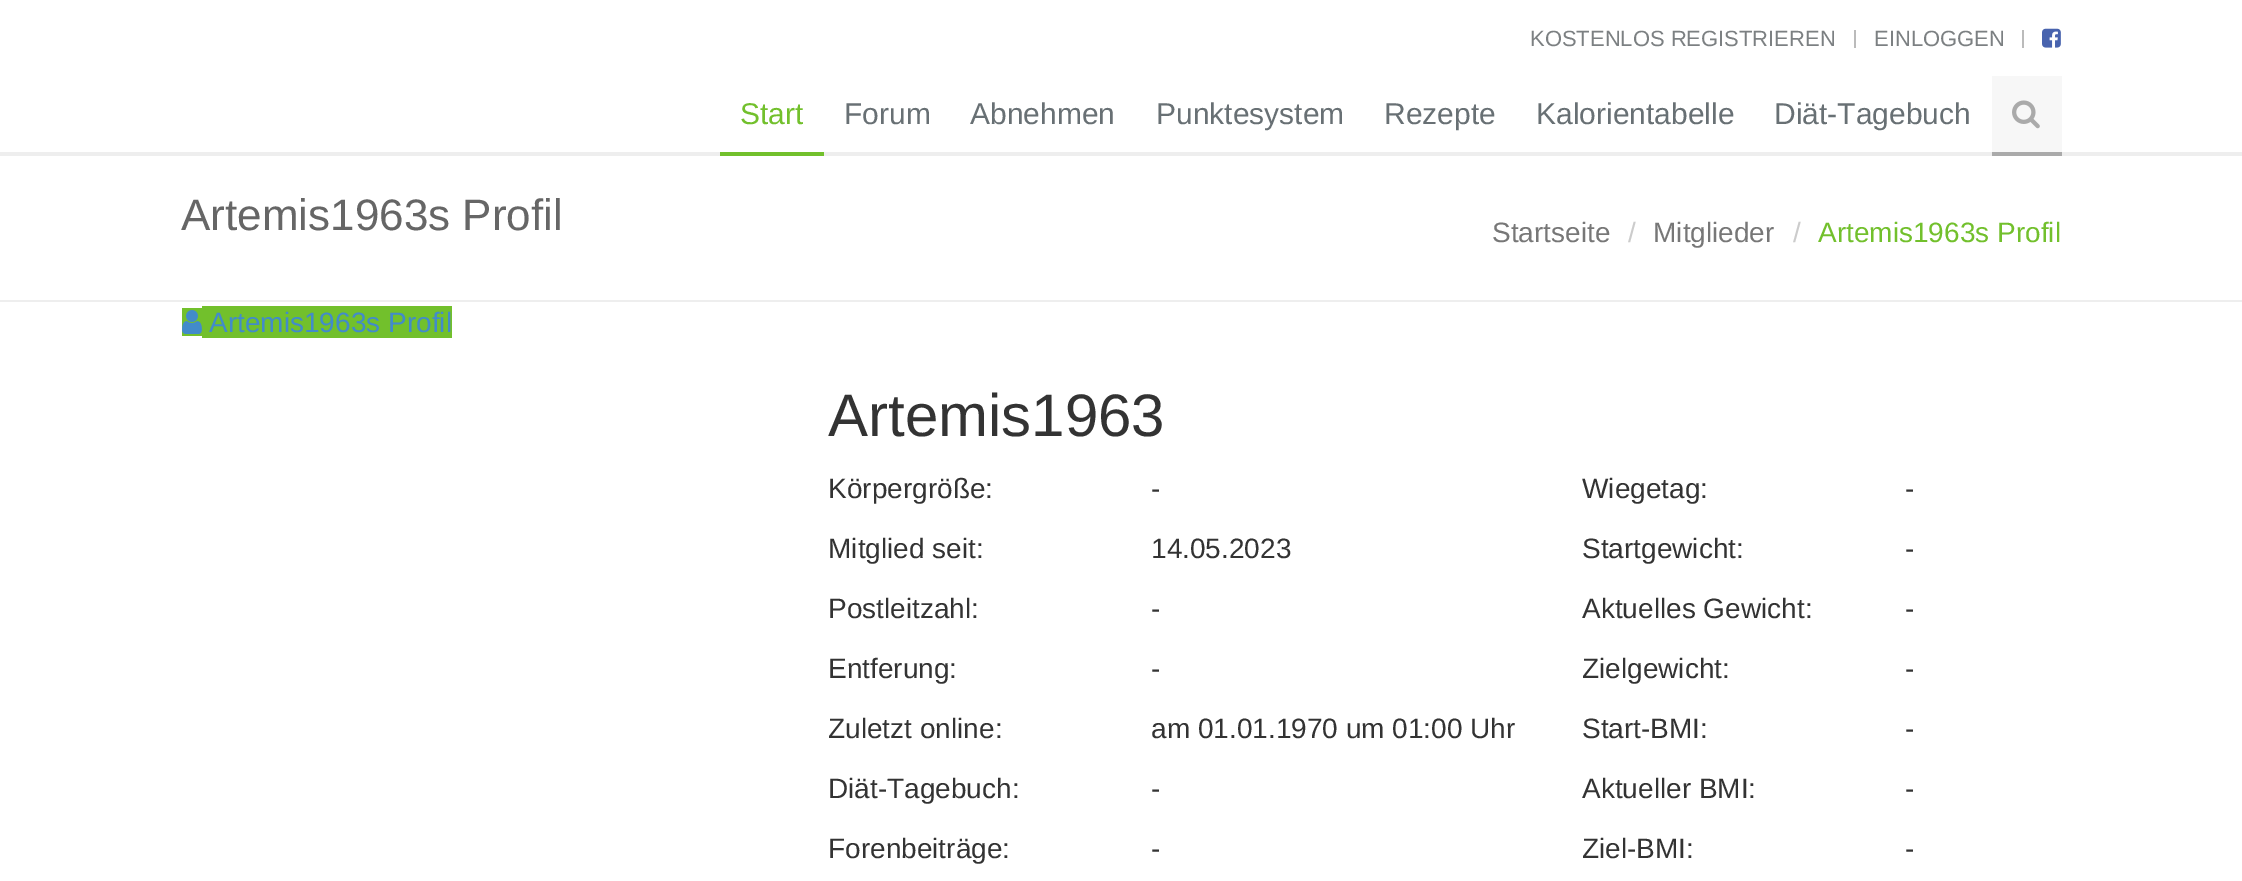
%!PS-Adobe-3.0
%%BoundingBox: 0 0 2242 881
%%LanguageLevel: 3
%%Pages: 1
%%EndComments
%%BeginProlog
/setink { 3 { 255 div 3 1 roll } repeat setrgbcolor } def
/usefont { [ exch dup neg 0 0 3 -1 roll 0 0 ] selectfont } def
/drawtext { setink usefont moveto show } def
/fillbox { setink rectfill } def
/drawimage { 5 dict begin { /h /w /y /x /name } { exch def } forall
  gsave x y translate w h scale
  w h 8 [w 0 0 h 0 0] name (r) file false 3 colorimage grestore end } def
%%EndProlog
%%BeginSetup
<< /PageSize [2242 881] >> setpagedevice
%%EndSetup
%%Page: 1 1
0 881 translate 1 -1 scale
4 setmiterlimit
0 0 2242 881 255 255 255 fillbox
0 152 2242 4 238 238 238 fillbox
(KOSTENLOS REGISTRIEREN) 1530 46 /LiberationSans-Regular 22 124 128 130 drawtext
1854 30 2 18 187 187 187 fillbox
(EINLOGGEN) 1874 46 /LiberationSans-Regular 22 124 128 130 drawtext
2022 30 2 18 187 187 187 fillbox
(assets/img1.rgb) 2042 28 19 20 drawimage
720 152 104 4 114 192 44 fillbox
(Start) 740 124 /LiberationSans-Regular 30 114 192 44 drawtext
(Forum) 844 124 /LiberationSans-Regular 30 104 112 116 drawtext
(Abnehmen) 970 124 /LiberationSans-Regular 30 104 112 116 drawtext
(Punktesystem) 1156 124 /LiberationSans-Regular 30 104 112 116 drawtext
(Rezepte) 1384 124 /LiberationSans-Regular 30 104 112 116 drawtext
(Kalorientabelle) 1536 124 /LiberationSans-Regular 30 104 112 116 drawtext
(Diät-Tagebuch) 1774 124 /LiberationSans-Regular 30 104 112 116 drawtext
1992 76 70 76 247 247 247 fillbox
1992 152 70 4 170 170 170 fillbox
(assets/img2.rgb) 2012 100 28 29 drawimage
0 300 2242 2 238 238 238 fillbox
(Artemis1963s Profil) 181 230 /LiberationSans-Regular 44 102 102 102 drawtext
(Startseite) 1492 242 /LiberationSans-Regular 28 119 119 119 drawtext
(/) 1628 242 /LiberationSans-Regular 28 204 204 204 drawtext
(Mitglieder) 1653 242 /LiberationSans-Regular 28 119 119 119 drawtext
(/) 1793 242 /LiberationSans-Regular 28 204 204 204 drawtext
(Artemis1963s Profil) 1818 242 /LiberationSans-Regular 28 114 192 44 drawtext
182 308 20 28 114 192 44 fillbox
202 306 250 32 114 192 44 fillbox
(assets/img3.rgb) 182 310 20 24 drawimage
(Artemis1963s Profil) 209 332 /LiberationSans-Regular 28 66 139 202 drawtext
(Artemis1963) 828 436 /LiberationSans-Regular 60 51 51 51 drawtext
(Körpergröße:) 828 498 /LiberationSans-Regular 28 51 51 51 drawtext
(-) 1151 498 /LiberationSans-Regular 28 51 51 51 drawtext
(Wiegetag:) 1582 498 /LiberationSans-Regular 28 51 51 51 drawtext
(-) 1905 498 /LiberationSans-Regular 28 51 51 51 drawtext
(Mitglied seit:) 828 558 /LiberationSans-Regular 28 51 51 51 drawtext
(14.05.2023) 1151 558 /LiberationSans-Regular 28 51 51 51 drawtext
(Startgewicht:) 1582 558 /LiberationSans-Regular 28 51 51 51 drawtext
(-) 1905 558 /LiberationSans-Regular 28 51 51 51 drawtext
(Postleitzahl:) 828 618 /LiberationSans-Regular 28 51 51 51 drawtext
(-) 1151 618 /LiberationSans-Regular 28 51 51 51 drawtext
(Aktuelles Gewicht:) 1582 618 /LiberationSans-Regular 28 51 51 51 drawtext
(-) 1905 618 /LiberationSans-Regular 28 51 51 51 drawtext
(Entferung:) 828 678 /LiberationSans-Regular 28 51 51 51 drawtext
(-) 1151 678 /LiberationSans-Regular 28 51 51 51 drawtext
(Zielgewicht:) 1582 678 /LiberationSans-Regular 28 51 51 51 drawtext
(-) 1905 678 /LiberationSans-Regular 28 51 51 51 drawtext
(Zuletzt online:) 828 738 /LiberationSans-Regular 28 51 51 51 drawtext
(am 01.01.1970 um 01:00 Uhr) 1151 738 /LiberationSans-Regular 28 51 51 51 drawtext
(Start-BMI:) 1582 738 /LiberationSans-Regular 28 51 51 51 drawtext
(-) 1905 738 /LiberationSans-Regular 28 51 51 51 drawtext
(Diät-Tagebuch:) 828 798 /LiberationSans-Regular 28 51 51 51 drawtext
(-) 1151 798 /LiberationSans-Regular 28 51 51 51 drawtext
(Aktueller BMI:) 1582 798 /LiberationSans-Regular 28 51 51 51 drawtext
(-) 1905 798 /LiberationSans-Regular 28 51 51 51 drawtext
(Forenbeiträge:) 828 858 /LiberationSans-Regular 28 51 51 51 drawtext
(-) 1151 858 /LiberationSans-Regular 28 51 51 51 drawtext
(Ziel-BMI:) 1582 858 /LiberationSans-Regular 28 51 51 51 drawtext
(-) 1905 858 /LiberationSans-Regular 28 51 51 51 drawtext
showpage
%%EOF
